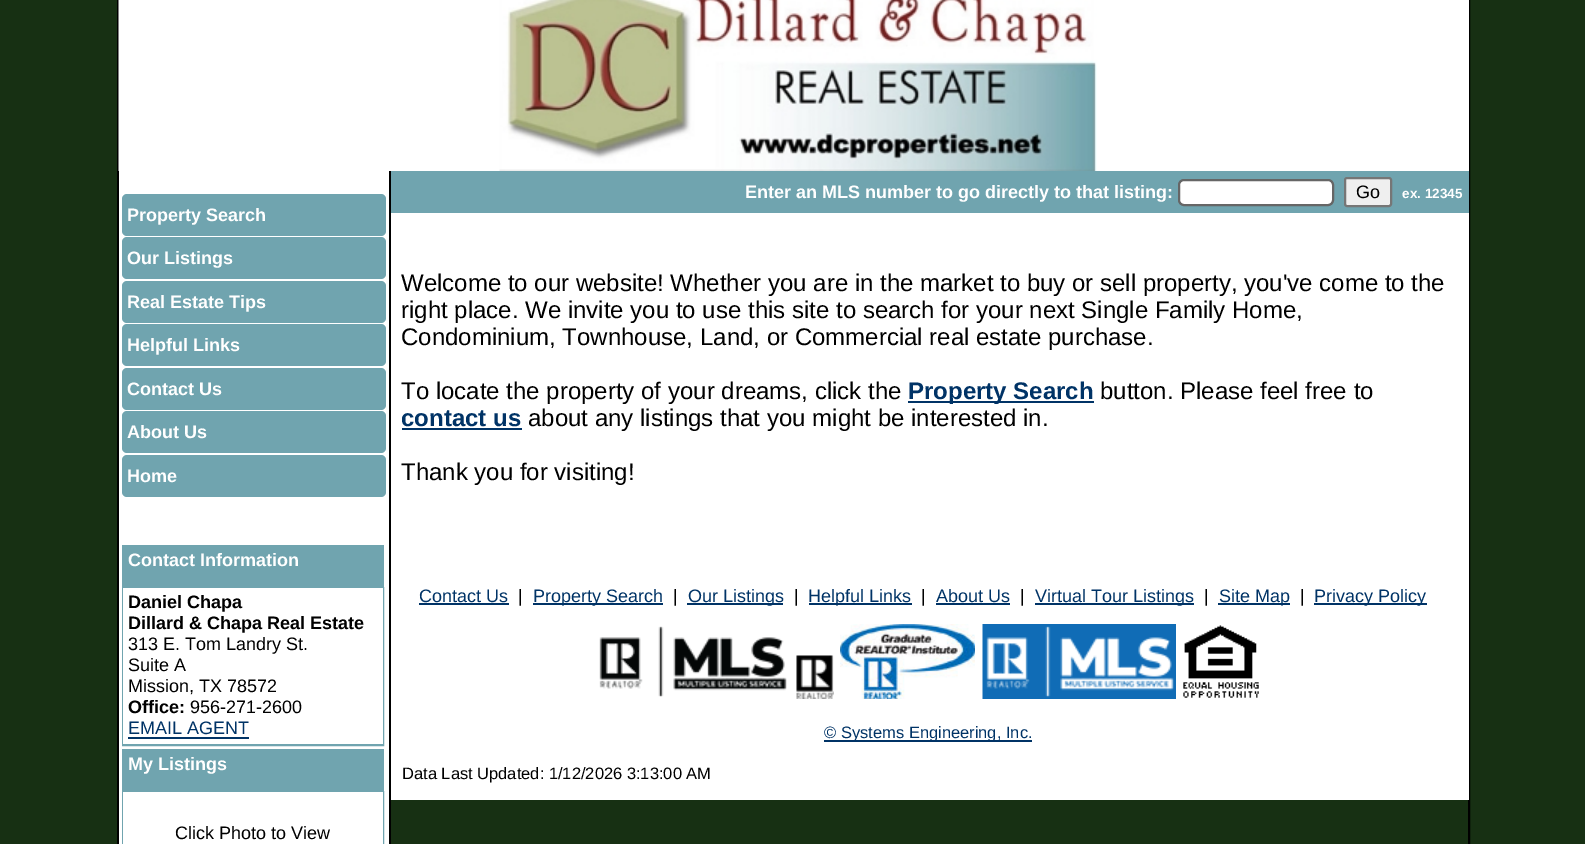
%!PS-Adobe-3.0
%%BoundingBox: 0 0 1585 844
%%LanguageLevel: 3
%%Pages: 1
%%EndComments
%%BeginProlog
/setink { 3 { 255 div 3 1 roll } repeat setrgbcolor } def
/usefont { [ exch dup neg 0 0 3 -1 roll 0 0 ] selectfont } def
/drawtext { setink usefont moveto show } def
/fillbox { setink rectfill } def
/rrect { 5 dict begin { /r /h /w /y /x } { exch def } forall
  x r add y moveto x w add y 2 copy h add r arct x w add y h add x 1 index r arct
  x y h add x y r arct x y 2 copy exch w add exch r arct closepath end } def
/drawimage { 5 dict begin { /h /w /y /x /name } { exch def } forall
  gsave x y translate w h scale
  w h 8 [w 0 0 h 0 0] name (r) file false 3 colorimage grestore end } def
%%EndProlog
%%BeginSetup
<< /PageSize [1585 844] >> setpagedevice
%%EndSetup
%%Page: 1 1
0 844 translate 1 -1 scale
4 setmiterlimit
0 0 1585 844 23 48 19 fillbox
0 0 0 setink
2 setlinewidth
118 -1 1351 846 rectstroke
1097 0 372 171 255 255 255 fillbox
(assets/img1.rgb) 118 0 979 171 drawimage
119 171 270 673 255 255 255 fillbox
389 171 2 673 0 0 0 fillbox
112 164 175 setink
122 194 264 42 5 rrect fill
(Property Search) 127 221 /LiberationSans-Bold 18 255 255 255 drawtext
112 164 175 setink
122 237 264 42 5 rrect fill
(Our Listings) 127 264 /LiberationSans-Bold 18 255 255 255 drawtext
112 164 175 setink
122 281 264 42 5 rrect fill
(Real Estate Tips) 127 308 /LiberationSans-Bold 18 255 255 255 drawtext
112 164 175 setink
122 324 264 42 5 rrect fill
(Helpful Links) 127 351 /LiberationSans-Bold 18 255 255 255 drawtext
112 164 175 setink
122 368 264 42 5 rrect fill
(Contact Us) 127 395 /LiberationSans-Bold 18 255 255 255 drawtext
112 164 175 setink
122 411 264 42 5 rrect fill
(About Us) 127 438 /LiberationSans-Bold 18 255 255 255 drawtext
112 164 175 setink
122 455 264 42 5 rrect fill
(Home) 127 482 /LiberationSans-Bold 18 255 255 255 drawtext
122 545 262 42 112 164 175 fillbox
(Contact Information) 128 566 /LiberationSans-Bold 18 255 255 255 drawtext
112 164 175 setink
123 588 260 157 rectstroke
123 588 260 156 255 255 255 fillbox
(Daniel Chapa) 128 608 /LiberationSans-Bold 18 0 0 0 drawtext
(Dillard & Chapa Real Estate) 128 629 /LiberationSans-Bold 18 0 0 0 drawtext
(313 E. Tom Landry St.) 128 650 /LiberationSans-Regular 18 0 0 0 drawtext
(Suite A) 128 671 /LiberationSans-Regular 18 0 0 0 drawtext
(Mission, TX 78572) 128 692 /LiberationSans-Regular 18 0 0 0 drawtext
(Office:) 128 713 /LiberationSans-Bold 18 0 0 0 drawtext
(956-271-2600) 190 713 /LiberationSans-Regular 18 0 0 0 drawtext
(EMAIL AGENT) 128 734 /LiberationSans-Regular 18 0 51 102 drawtext
128 737 121 2 0 51 102 fillbox
122 749 262 42 112 164 175 fillbox
(My Listings) 128 770 /LiberationSans-Bold 18 255 255 255 drawtext
112 164 175 setink
123 792 260 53 rectstroke
123 792 260 52 255 255 255 fillbox
(Click Photo to View) 175 839 /LiberationSans-Regular 18 0 0 0 drawtext
391 213 1078 587 255 255 255 fillbox
391 171 1078 42 112 164 175 fillbox
(Enter an MLS number to go directly to that listing:) 745 198 /LiberationSans-Bold 18 255 255 255 drawtext
1179 180 154 25 5 rrect gsave fill grestore
102 102 102 setink
stroke
239 239 239 setink
1345 178 46 28 2 rrect gsave fill grestore
118 118 118 setink
stroke
(Go) 1356 198 /LiberationSans-Regular 18 0 0 0 drawtext
(ex. 12345) 1402 198 /LiberationSans-Bold 13.5 255 255 255 drawtext
(Welcome to our website! Whether you are in the market to buy or sell property, you've come to the) 401 291 /LiberationSans-Regular 24 0 0 0 drawtext
(right place. We invite you to use this site to search for your next Single Family Home,) 401 318 /LiberationSans-Regular 24 0 0 0 drawtext
(Condominium, Townhouse, Land, or Commercial real estate purchase.) 401 345 /LiberationSans-Regular 24 0 0 0 drawtext
(To locate the property of your dreams, click the) 401 399 /LiberationSans-Regular 24 0 0 0 drawtext
908 401 186 2 0 51 102 fillbox
(Property Search) 908 399 /LiberationSans-Bold 24 0 51 102 drawtext
(button. Please feel free to) 1100 399 /LiberationSans-Regular 24 0 0 0 drawtext
(contact us) 401 426 /LiberationSans-Bold 24 0 51 102 drawtext
402 428 120 2 0 51 102 fillbox
(about any listings that you might be interested in.) 528 426 /LiberationSans-Regular 24 0 0 0 drawtext
(Thank you for visiting!) 401 480 /LiberationSans-Regular 24 0 0 0 drawtext
(Contact Us) 419 602 /LiberationSans-Regular 18 0 51 102 drawtext
419 603 90 2 0 51 102 fillbox
(|) 518 602 /LiberationSans-Regular 18 0 0 0 drawtext
533 603 130 2 0 51 102 fillbox
(Property Search) 533 602 /LiberationSans-Regular 18 0 51 102 drawtext
(|) 673 602 /LiberationSans-Regular 18 0 0 0 drawtext
687 603 96 2 0 51 102 fillbox
(Our Listings) 688 602 /LiberationSans-Regular 18 0 51 102 drawtext
(|) 794 602 /LiberationSans-Regular 18 0 0 0 drawtext
809 603 103 2 0 51 102 fillbox
(Helpful Links) 808 602 /LiberationSans-Regular 18 0 51 102 drawtext
(|) 921 602 /LiberationSans-Regular 18 0 0 0 drawtext
(About Us) 936 602 /LiberationSans-Regular 18 0 51 102 drawtext
936 603 74 2 0 51 102 fillbox
(|) 1020 602 /LiberationSans-Regular 18 0 0 0 drawtext
1035 603 159 2 0 51 102 fillbox
(Virtual Tour Listings) 1035 602 /LiberationSans-Regular 18 0 51 102 drawtext
(|) 1204 602 /LiberationSans-Regular 18 0 0 0 drawtext
1218 603 72 2 0 51 102 fillbox
(Site Map) 1219 602 /LiberationSans-Regular 18 0 51 102 drawtext
(|) 1300 602 /LiberationSans-Regular 18 0 0 0 drawtext
1314 603 113 2 0 51 102 fillbox
(Privacy Policy) 1314 602 /LiberationSans-Regular 18 0 51 102 drawtext
(assets/img2.rgb) 599 626 188 71 drawimage
(assets/img3.rgb) 796 655 38 44 drawimage
(assets/img4.rgb) 840 624 135 75 drawimage
(assets/img5.rgb) 982 624 194 75 drawimage
(assets/img6.rgb) 1183 625 76 73 drawimage
824 740 208 2 0 51 102 fillbox
(© Systems Engineering, Inc.) 824 738 /LiberationSans-Regular 16.5 0 51 102 drawtext
(Data Last Updated: 1/12/2026 3:13:00 AM) 402 779 /LiberationSans-Regular 16.5 0 0 0 drawtext
showpage
%%EOF
